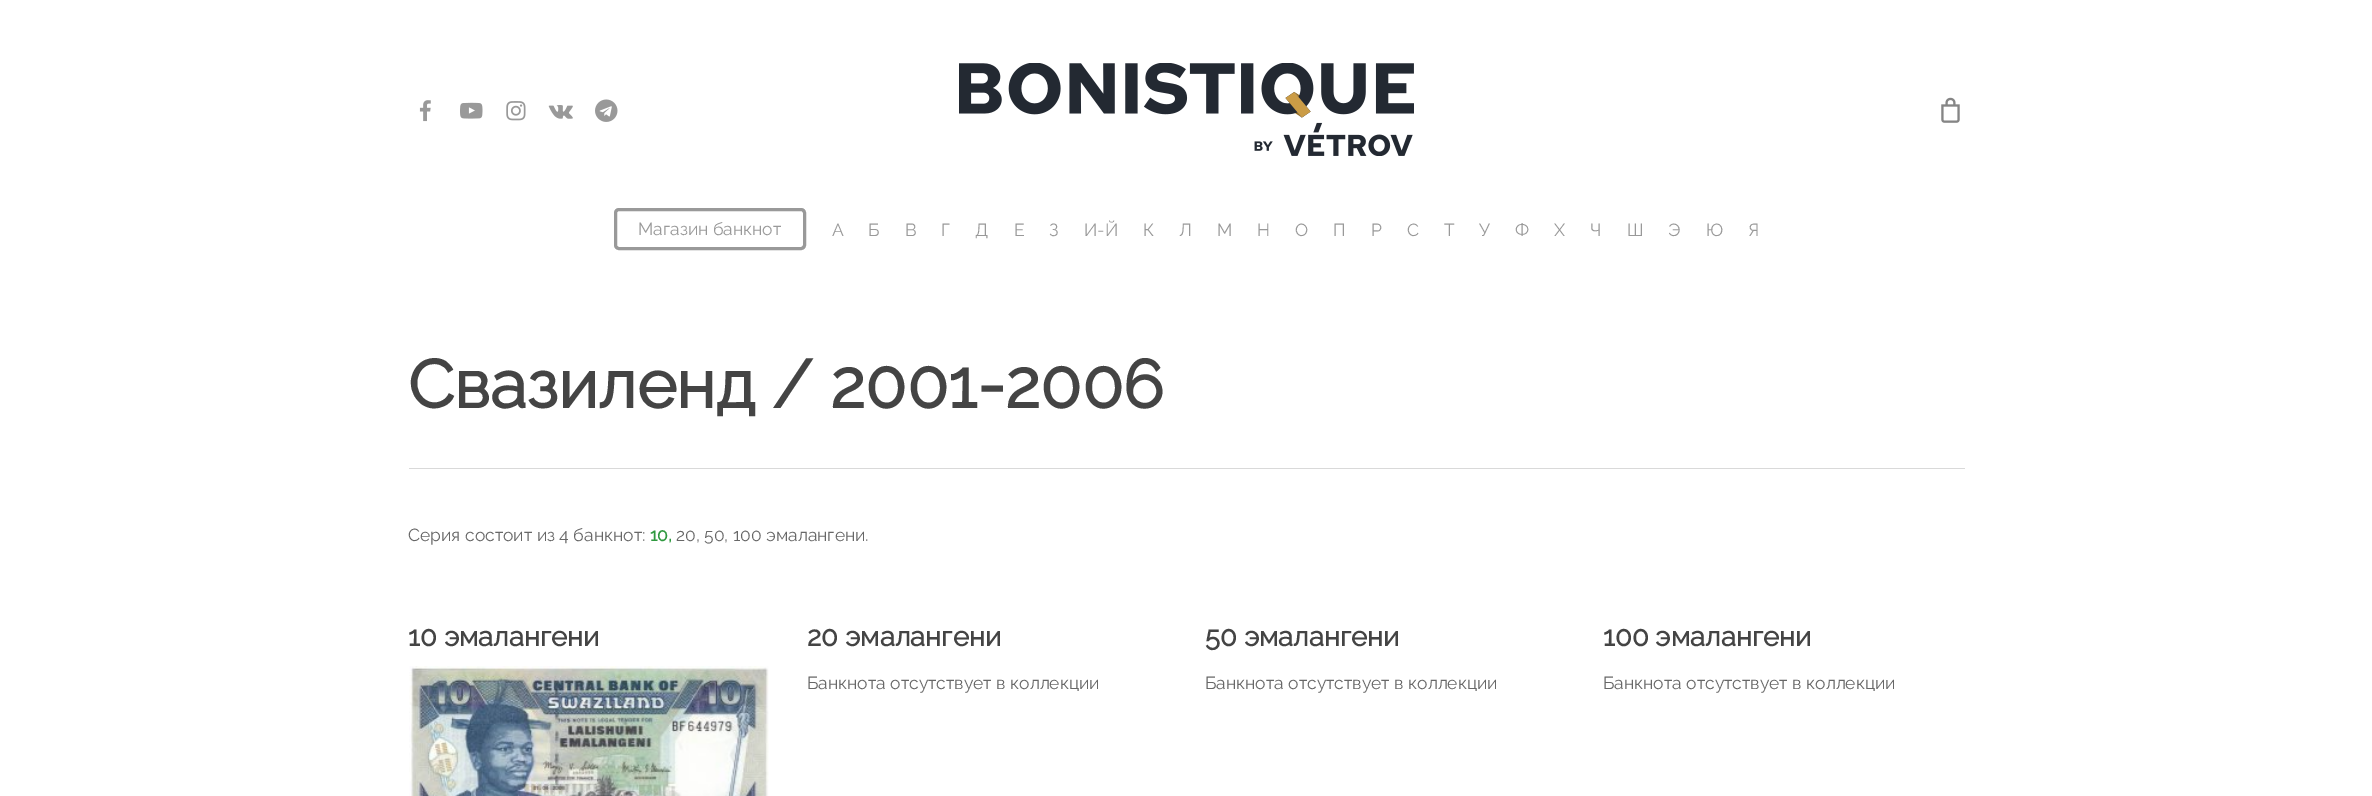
%!PS-Adobe-3.0
%%BoundingBox: 0 0 2372 796
%%LanguageLevel: 3
%%Pages: 1
%%EndComments
%%BeginProlog
/setink { 3 { 255 div 3 1 roll } repeat setrgbcolor } def
/usefont { [ exch dup neg 0 0 3 -1 roll 0 0 ] selectfont } def
/drawtext { setink usefont moveto show } def
/fillbox { setink rectfill } def
/rrect { 5 dict begin { /r /h /w /y /x } { exch def } forall
  x r add y moveto x w add y 2 copy h add r arct x w add y h add x 1 index r arct
  x y h add x y r arct x y 2 copy exch w add exch r arct closepath end } def
/drawimage { 5 dict begin { /h /w /y /x /name } { exch def } forall
  gsave x y translate w h scale
  w h 8 [w 0 0 h 0 0] name (r) file false 3 colorimage grestore end } def
%%EndProlog
%%BeginSetup
<< /PageSize [2372 796] >> setpagedevice
%%EndSetup
%%Page: 1 1
0 796 translate 1 -1 scale
4 setmiterlimit
0 0 2372 796 255 255 255 fillbox
(assets/img1.rgb) 419 100 12 22 drawimage
(assets/img2.rgb) 460 102 23 17 drawimage
(assets/img3.rgb) 506 101 20 20 drawimage
(assets/img4.rgb) 548 105 25 14 drawimage
(assets/img5.rgb) 595 99 23 23 drawimage
(assets/img6.rgb) 959 63 455 93 drawimage
(assets/img7.rgb) 1941 97 19 26 drawimage
153 153 153 setink
3 setlinewidth
615.5 209.5 189 39 3.5 rrect stroke
(Магазин банкнот) 638 235 /Raleway-Thin 17.5 153 153 153 drawtext
(А) 832 236 /Raleway-Thin 17.5 153 153 153 drawtext
(Б) 868 236 /Raleway-Thin 17.5 153 153 153 drawtext
(В) 905 236 /Raleway-Thin 17.5 153 153 153 drawtext
(Г) 941 236 /Raleway-Thin 17.5 153 153 153 drawtext
(Д) 975 236 /Raleway-Thin 17.5 153 153 153 drawtext
(Е) 1014 236 /Raleway-Thin 17.5 153 153 153 drawtext
(З) 1049 236 /Raleway-Thin 17.5 153 153 153 drawtext
(И-Й) 1084 236 /Raleway-Thin 17.5 153 153 153 drawtext
(К) 1143 236 /Raleway-Thin 17.5 153 153 153 drawtext
(Л) 1179 236 /Raleway-Thin 17.5 153 153 153 drawtext
(М) 1217 236 /Raleway-Thin 17.5 153 153 153 drawtext
(Н) 1257 236 /Raleway-Thin 17.5 153 153 153 drawtext
(О) 1295 236 /Raleway-Thin 17.5 153 153 153 drawtext
(П) 1333 236 /Raleway-Thin 17.5 153 153 153 drawtext
(Р) 1371 236 /Raleway-Thin 17.5 153 153 153 drawtext
(С) 1407 236 /Raleway-Thin 17.5 153 153 153 drawtext
(Т) 1444 236 /Raleway-Thin 17.5 153 153 153 drawtext
(У) 1479 236 /Raleway-Thin 17.5 153 153 153 drawtext
(Ф) 1515 236 /Raleway-Thin 17.5 153 153 153 drawtext
(Х) 1554 236 /Raleway-Thin 17.5 153 153 153 drawtext
(Ч) 1590 236 /Raleway-Thin 17.5 153 153 153 drawtext
(Ш) 1627 236 /Raleway-Thin 17.5 153 153 153 drawtext
(Э) 1668 236 /Raleway-Thin 17.5 153 153 153 drawtext
(Ю) 1706 236 /Raleway-Thin 17.5 153 153 153 drawtext
(Я) 1748 236 /Raleway-Thin 17.5 153 153 153 drawtext
409 468 1556 1 217 217 217 fillbox
(Свазиленд / 2001-2006) 408 408 /Raleway-Bold 67.5 68 68 68 drawtext
(Серия состоит из 4 банкнот:) 408 541 /Raleway-Thin 17.5 103 103 103 drawtext
(10,) 650 541 /Raleway-Bold 17.5 47 153 63 drawtext
(20, 50, 100 эмалангени.) 676 541 /Raleway-Thin 17.5 103 103 103 drawtext
(10 эмалангени) 408 646 /Raleway-Bold 27.5 68 68 68 drawtext
(assets/img8.rgb) 409 666 360 130 drawimage
(20 эмалангени) 807 646 /Raleway-Bold 27.5 68 68 68 drawtext
(Банкнота отсутствует в коллекции) 807 689 /Raleway-Thin 17.5 103 103 103 drawtext
(50 эмалангени) 1205 646 /Raleway-Bold 27.5 68 68 68 drawtext
(Банкнота отсутствует в коллекции) 1205 689 /Raleway-Thin 17.5 103 103 103 drawtext
(100 эмалангени) 1603 646 /Raleway-Bold 27.5 68 68 68 drawtext
(Банкнота отсутствует в коллекции) 1603 689 /Raleway-Thin 17.5 103 103 103 drawtext
showpage
%%EOF
